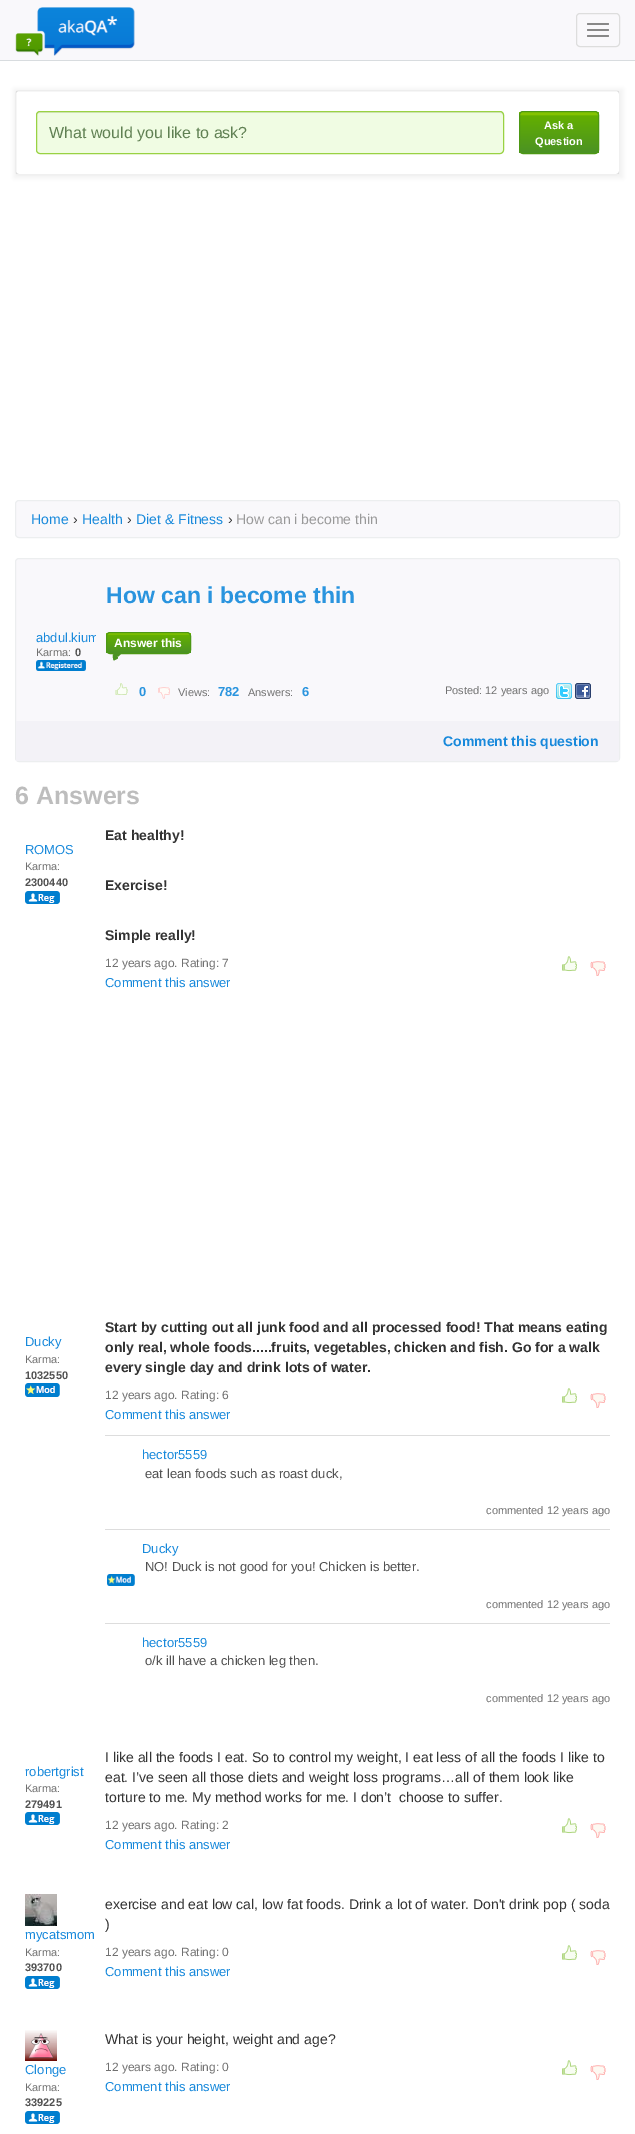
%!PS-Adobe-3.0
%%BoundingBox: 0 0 635 2134
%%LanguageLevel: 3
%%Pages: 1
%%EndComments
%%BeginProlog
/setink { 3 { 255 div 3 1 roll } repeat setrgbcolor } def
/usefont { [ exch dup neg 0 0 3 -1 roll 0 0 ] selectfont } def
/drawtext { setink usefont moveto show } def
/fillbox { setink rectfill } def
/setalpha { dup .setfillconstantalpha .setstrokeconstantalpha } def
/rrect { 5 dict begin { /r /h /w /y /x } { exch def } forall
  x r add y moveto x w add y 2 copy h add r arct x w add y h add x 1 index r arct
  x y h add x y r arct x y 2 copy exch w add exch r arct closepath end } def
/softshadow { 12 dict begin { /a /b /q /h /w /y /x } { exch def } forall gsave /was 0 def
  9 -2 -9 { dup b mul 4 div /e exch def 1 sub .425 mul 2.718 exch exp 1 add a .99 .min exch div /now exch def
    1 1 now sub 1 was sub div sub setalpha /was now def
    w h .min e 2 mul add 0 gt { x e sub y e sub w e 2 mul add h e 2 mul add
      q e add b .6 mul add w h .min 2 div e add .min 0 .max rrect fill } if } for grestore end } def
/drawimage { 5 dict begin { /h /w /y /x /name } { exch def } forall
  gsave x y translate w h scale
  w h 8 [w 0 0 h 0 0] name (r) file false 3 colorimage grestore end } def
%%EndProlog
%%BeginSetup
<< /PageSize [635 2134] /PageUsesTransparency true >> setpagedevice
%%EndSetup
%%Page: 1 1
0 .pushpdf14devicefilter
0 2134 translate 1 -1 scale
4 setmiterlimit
0 0 635 2134 255 255 255 fillbox
0 0 635 60 249 248 251 fillbox
0 60 635 1 216 220 223 fillbox
(assets/img1.rgb) 15 7 120 49 drawimage
221 221 221 setink
576.5 13.5 43 33 3.5 rrect stroke
136 136 136 setink
587 23 22 2 1 rrect fill
587 29 22 2 1 rrect fill
587 35 22 2 1 rrect fill
0 0 0 setink
15 91 605 85 4 0.5 0.05 softshadow
255 255 255 setink
15.5 90.5 604 84 3.5 rrect gsave fill grestore
221 221 221 setink
stroke
gsave
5 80 moveto 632 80 lineto 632 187 lineto 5 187 lineto closepath 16 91 moveto 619 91 lineto 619 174 lineto 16 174 lineto closepath eoclip newpath
242 242 242 setink
14 89 609 89 0 2.5 1 softshadow
grestore
240 252 227 setink
36 111 468 43 4 rrect fill
222 233 210 setink
40 113 moveto 500 113 lineto 502 113 503 114 503 116 curveto 503 115 lineto 503 113 502 112 500 112 curveto 40 112 lineto 38 112 37 113 37 115 curveto 37 116 lineto 37 114 38 113 40 113 curveto closepath fill
153 210 67 setink
36.5 111.5 467 42 3.5 rrect stroke
(What would you like to ask?) 49 138 /LiberationSans-Regular 16 96 128 83 drawtext
gsave
519 111 80 43 4 rrect clip newpath
gsave 519 112 moveto 599 112 lineto 599 153 lineto 519 153 lineto closepath clip newpath
<< /ShadingType 2 /ColorSpace /DeviceRGB /Coords [559 112 559 153] /Extend [true true] /Function << /FunctionType 3 /Domain [0 1] /Functions [<< /FunctionType 2 /Domain [0 1] /C0 [0.518 0.765 0] /C1 [0.518 0.765 0] /N 1 >> << /FunctionType 2 /Domain [0 1] /C0 [0.518 0.765 0] /C1 [0.388 0.686 0] /N 1 >> << /FunctionType 2 /Domain [0 1] /C0 [0.388 0.686 0] /C1 [0.294 0.573 0.141] /N 1 >>] /Bounds [0.07 0.09] /Encode [0 1 0 1 0 1] >> >> shfill grestore
grestore
77 152 20 setink
519.5 111.5 79 42 3.5 rrect stroke
(Ask a) 544 129 /LiberationSans-Bold 11 255 255 255 drawtext
(Question) 535 145 /LiberationSans-Bold 11 255 255 255 drawtext
249 248 251 setink
15.5 500.5 604 37 3.5 rrect gsave fill grestore
236 238 239 setink
stroke
(Home) 31 524 /LiberationSans-Regular 14 24 137 219 drawtext
(›) 73 524 /LiberationSans-Regular 14 51 51 51 drawtext
(Health) 82 524 /LiberationSans-Regular 14 24 137 219 drawtext
(›) 127 524 /LiberationSans-Regular 14 51 51 51 drawtext
(Diet & Fitness) 136 524 /LiberationSans-Regular 14 24 137 219 drawtext
(›) 228 524 /LiberationSans-Regular 14 51 51 51 drawtext
(How can i become thin) 236 524 /LiberationSans-Regular 14 153 153 153 drawtext
249 248 251 setink
15.5 558.5 604 203 3.5 rrect gsave fill grestore
236 238 239 setink
stroke
gsave
36 579 60 133 rectclip
(abdul.kium) 36 642 /LiberationSans-Regular 13 24 137 219 drawtext
grestore
(Karma:) 36 656 /LiberationSans-Regular 11 113 113 113 drawtext
(0) 75 656 /LiberationSans-Bold 11 81 81 81 drawtext
(assets/img2.rgb) 36 660 50 11 drawimage
(How can i become thin) 106 603 /LiberationSans-Bold 23 42 148 222 drawtext
gsave
106 632 85 22 4 rrect clip newpath
gsave 106 633 moveto 191 633 lineto 191 653 lineto 106 653 lineto closepath clip newpath
<< /ShadingType 2 /ColorSpace /DeviceRGB /Coords [149 633 149 653] /Extend [true true] /Function << /FunctionType 3 /Domain [0 1] /Functions [<< /FunctionType 2 /Domain [0 1] /C0 [0.518 0.765 0] /C1 [0.518 0.765 0] /N 1 >> << /FunctionType 2 /Domain [0 1] /C0 [0.518 0.765 0] /C1 [0.388 0.686 0] /N 1 >> << /FunctionType 2 /Domain [0 1] /C0 [0.388 0.686 0] /C1 [0.294 0.573 0.141] /N 1 >>] /Bounds [0.07 0.09] /Encode [0 1 0 1 0 1] >> >> shfill grestore
grestore
77 152 20 setink
106.5 632.5 84 21 3.5 rrect stroke
(Answer this) 114 647 /LiberationSans-Bold 12 255 255 255 drawtext
76 147 33 setink
115 652 moveto 114 652 113.5 652.5 113.5 653 curveto 114 656.5 lineto 118.5 656.5 lineto 122.5 652.5 lineto 122 652 121.5 652 120 652 curveto closepath fill
113 654 moveto 113.5 653 lineto 114 656.5 lineto 118 656.5 lineto 118 658.5 lineto 114 660.5 lineto 112.5 659.5 113 655.5 113 654 curveto closepath fill
75 146 36 setink
116 655 moveto 116.5 655 117 655.5 117.5 655.5 curveto 116.5 657 lineto 115.5 657 lineto 114.5 655.5 lineto 115 655.5 115.5 655 116 655 curveto closepath fill
116 658 moveto 115 658.5 lineto 114 658 114 656.5 114.5 655.5 curveto 115.5 657 lineto 116 657 lineto closepath fill
(assets/img3.rgb) 115 683 13 12 drawimage
(0) 139 696 /LiberationSans-Bold 13 42 148 222 drawtext
(assets/img4.rgb) 158 687 12 12 drawimage
(Views:) 178 696 /LiberationSans-Regular 11 113 113 113 drawtext
(782) 218 696 /LiberationSans-Bold 13 42 148 222 drawtext
(Answers:) 248 696 /LiberationSans-Regular 11 113 113 113 drawtext
(6) 302 696 /LiberationSans-Bold 13 42 148 222 drawtext
(Posted: 12 years ago) 445 694 /LiberationSans-Regular 11 113 113 113 drawtext
(assets/img5.rgb) 556 683 16 16 drawimage
(assets/img6.rgb) 575 683 16 16 drawimage
16 721 603 40 243 242 247 fillbox
(Comment this question) 443 746 /LiberationSans-Bold 14 24 137 219 drawtext
(6 Answers) 15 804 /LiberationSans-Bold 25 189 189 189 drawtext
(ROMOS) 25 854 /LiberationSans-Regular 13 24 137 219 drawtext
(Karma:) 25 870 /LiberationSans-Regular 11 113 113 113 drawtext
(2300440) 25 886 /LiberationSans-Bold 11 81 81 81 drawtext
(assets/img7.rgb) 25 891 35 13 drawimage
(Eat healthy!) 105 840 /LiberationSans-Bold 14 51 51 51 drawtext
(Exercise!) 105 890 /LiberationSans-Bold 14 51 51 51 drawtext
(Simple really!) 105 940 /LiberationSans-Bold 14 51 51 51 drawtext
(12 years ago. Rating: 7) 105 967 /LiberationSans-Regular 12 113 113 113 drawtext
(assets/img8.rgb) 562 956 15 16 drawimage
(assets/img9.rgb) 590 961 16 15 drawimage
(Comment this answer) 105 987 /LiberationSans-Regular 13 24 137 219 drawtext
(Ducky) 25 1346 /LiberationSans-Regular 13 24 137 219 drawtext
(Karma:) 25 1363 /LiberationSans-Regular 11 113 113 113 drawtext
(1032550) 25 1379 /LiberationSans-Bold 11 81 81 81 drawtext
(assets/img10.rgb) 25 1383 35 14 drawimage
(Start by cutting out all junk food and all processed food! That means eating) 105 1332 /LiberationSans-Bold 14 51 51 51 drawtext
(only real, whole foods.....fruits, vegetables, chicken and fish. Go for a walk) 105 1352 /LiberationSans-Bold 14 51 51 51 drawtext
(every single day and drink lots of water.) 105 1372 /LiberationSans-Bold 14 51 51 51 drawtext
(12 years ago. Rating: 6) 105 1399 /LiberationSans-Regular 12 113 113 113 drawtext
(assets/img8.rgb) 562 1388 15 16 drawimage
(assets/img9.rgb) 590 1393 16 15 drawimage
(Comment this answer) 105 1419 /LiberationSans-Regular 13 24 137 219 drawtext
105 1435 505 1 221 221 221 fillbox
(hector5559) 142 1459 /LiberationSans-Regular 13 24 137 219 drawtext
(eat lean foods such as roast duck,) 145 1478 /LiberationSans-Regular 13 81 81 81 drawtext
(commented 12 years ago) 486 1514 /LiberationSans-Regular 11 113 113 113 drawtext
105 1529 505 1 221 221 221 fillbox
(Ducky) 142 1553 /LiberationSans-Regular 13 24 137 219 drawtext
(NO! Duck is not good for you! Chicken is better.) 145 1571 /LiberationSans-Regular 13 81 81 81 drawtext
(assets/img11.rgb) 107 1574 28 12 drawimage
(commented 12 years ago) 486 1608 /LiberationSans-Regular 11 113 113 113 drawtext
105 1623 505 1 221 221 221 fillbox
(hector5559) 142 1647 /LiberationSans-Regular 13 24 137 219 drawtext
(o/k ill have a chicken leg then.) 145 1665 /LiberationSans-Regular 13 81 81 81 drawtext
(commented 12 years ago) 486 1702 /LiberationSans-Regular 11 113 113 113 drawtext
(robertgrist) 25 1776 /LiberationSans-Regular 13 24 137 219 drawtext
(Karma:) 25 1792 /LiberationSans-Regular 11 113 113 113 drawtext
(279491) 25 1808 /LiberationSans-Bold 11 81 81 81 drawtext
(assets/img7.rgb) 25 1812 35 13 drawimage
(I like all the foods I eat. So to control my weight, I eat less of all the foods I like to) 105 1762 /LiberationSans-Regular 14 51 51 51 drawtext
(eat. I’ve seen all those diets and weight loss programs…all of them look like) 105 1782 /LiberationSans-Regular 14 51 51 51 drawtext
(torture to me. My method works for me. I don’t  choose to suffer.) 105 1802 /LiberationSans-Regular 14 51 51 51 drawtext
(12 years ago. Rating: 2) 105 1829 /LiberationSans-Regular 12 113 113 113 drawtext
(assets/img8.rgb) 562 1818 15 16 drawimage
(assets/img9.rgb) 590 1823 16 15 drawimage
(Comment this answer) 105 1849 /LiberationSans-Regular 13 24 137 219 drawtext
(assets/img12.rgb) 25 1894 32 32 drawimage
(mycatsmom) 25 1939 /LiberationSans-Regular 13 24 137 219 drawtext
(Karma:) 25 1956 /LiberationSans-Regular 11 113 113 113 drawtext
(393700) 25 1971 /LiberationSans-Bold 11 81 81 81 drawtext
(assets/img7.rgb) 25 1976 35 13 drawimage
(exercise and eat low cal, low fat foods. Drink a lot of water. Don't drink pop \( soda) 105 1909 /LiberationSans-Regular 14 51 51 51 drawtext
(\)) 105 1929 /LiberationSans-Regular 14 51 51 51 drawtext
(12 years ago. Rating: 0) 105 1956 /LiberationSans-Regular 12 113 113 113 drawtext
(assets/img8.rgb) 562 1945 15 16 drawimage
(assets/img9.rgb) 590 1950 16 15 drawimage
(Comment this answer) 105 1976 /LiberationSans-Regular 13 24 137 219 drawtext
(assets/img13.rgb) 25 2030 32 31 drawimage
(Clonge) 25 2074 /LiberationSans-Regular 13 24 137 219 drawtext
(Karma:) 25 2091 /LiberationSans-Regular 11 113 113 113 drawtext
(339225) 25 2106 /LiberationSans-Bold 11 81 81 81 drawtext
(assets/img7.rgb) 25 2111 35 13 drawimage
(What is your height, weight and age?) 105 2044 /LiberationSans-Regular 14 51 51 51 drawtext
(12 years ago. Rating: 0) 105 2071 /LiberationSans-Regular 12 113 113 113 drawtext
(assets/img8.rgb) 562 2060 15 16 drawimage
(assets/img9.rgb) 590 2065 16 15 drawimage
(Comment this answer) 105 2091 /LiberationSans-Regular 13 24 137 219 drawtext
.poppdf14devicefilter showpage
%%EOF
